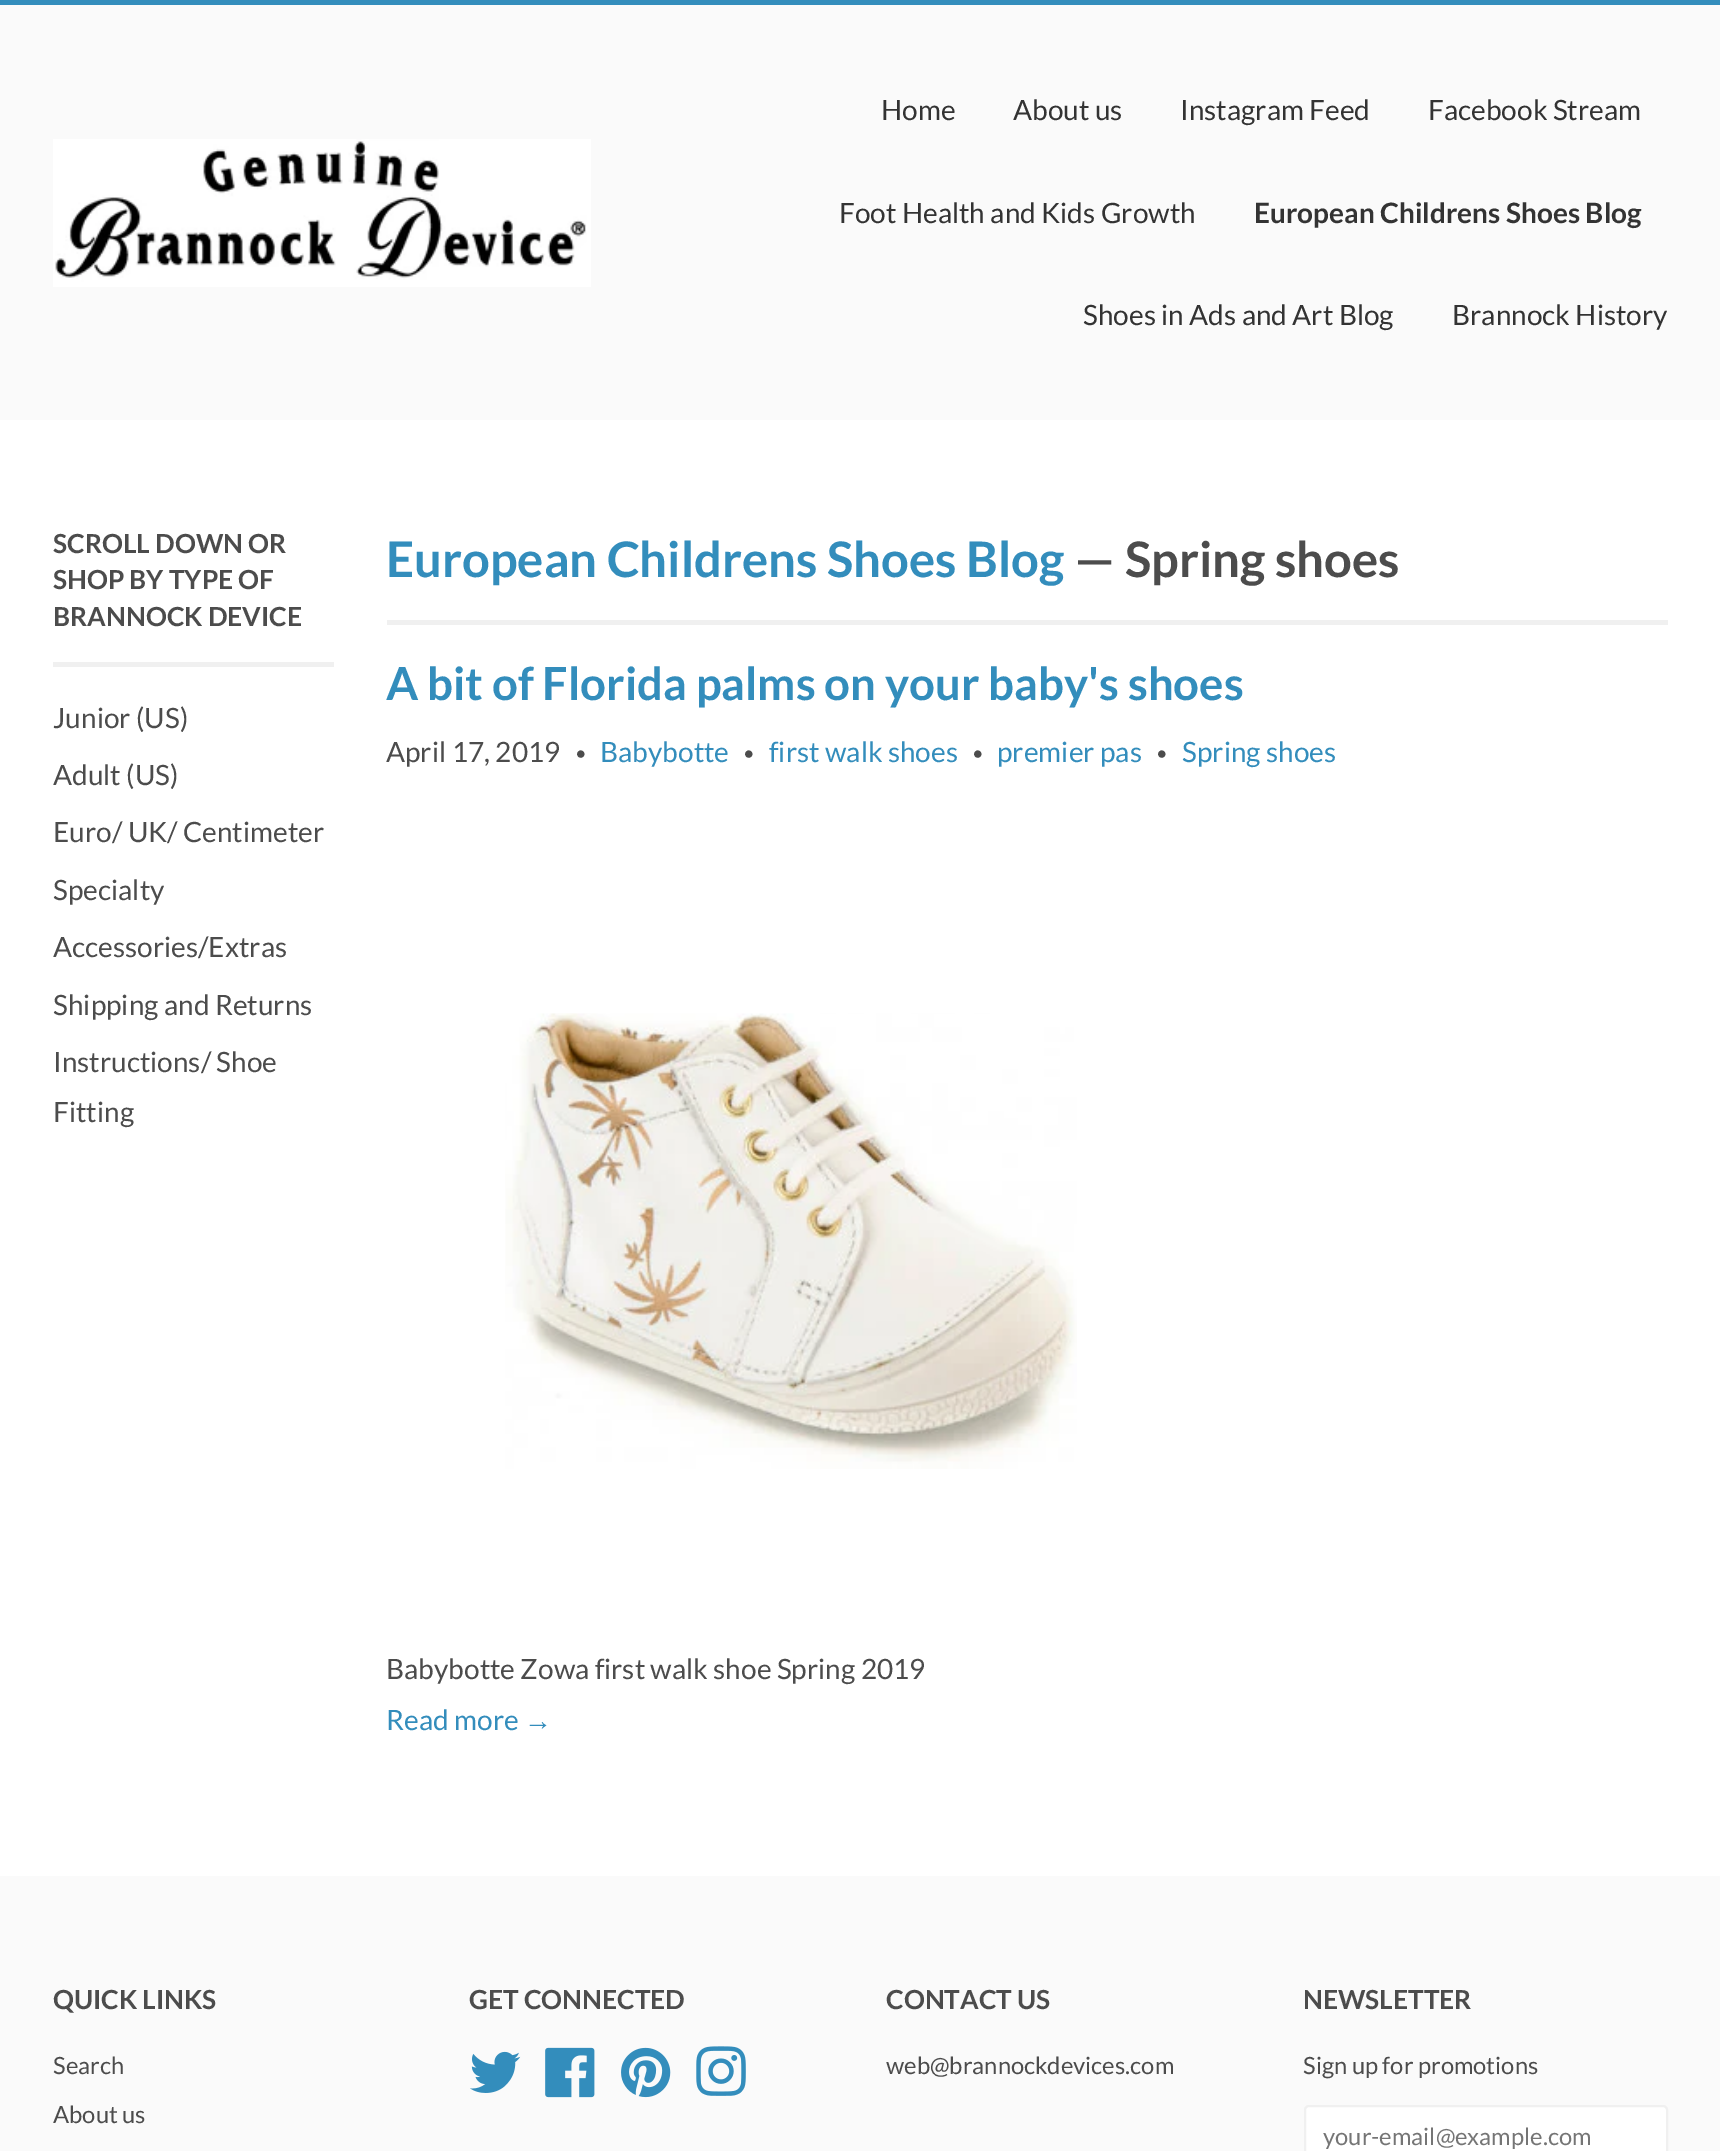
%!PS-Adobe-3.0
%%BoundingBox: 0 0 1720 2151
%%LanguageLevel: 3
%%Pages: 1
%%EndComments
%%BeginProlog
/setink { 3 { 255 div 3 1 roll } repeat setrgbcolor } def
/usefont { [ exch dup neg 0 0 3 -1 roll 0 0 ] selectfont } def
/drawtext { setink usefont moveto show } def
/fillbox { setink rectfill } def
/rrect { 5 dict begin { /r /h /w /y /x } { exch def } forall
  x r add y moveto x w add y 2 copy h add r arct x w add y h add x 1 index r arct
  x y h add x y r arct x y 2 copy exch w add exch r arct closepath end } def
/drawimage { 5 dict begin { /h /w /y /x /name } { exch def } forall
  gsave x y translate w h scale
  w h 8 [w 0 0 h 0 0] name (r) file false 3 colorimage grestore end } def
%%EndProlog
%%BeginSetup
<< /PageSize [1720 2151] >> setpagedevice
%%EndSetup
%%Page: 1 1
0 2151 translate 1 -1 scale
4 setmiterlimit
0 0 1720 2151 255 255 255 fillbox
0 0 1720 5 51 141 188 fillbox
0 5 1720 415 250 250 250 fillbox
(assets/img1.rgb) 53 139 538 148 drawimage
(Home) 881 120 /Lato-Regular 28 51 51 51 drawtext
(About us) 1013 120 /Lato-Regular 28 51 51 51 drawtext
(Instagram Feed) 1180 120 /Lato-Regular 28 51 51 51 drawtext
(Facebook Stream) 1428 120 /Lato-Regular 28 51 51 51 drawtext
(Foot Health and Kids Growth) 839 223 /Lato-Regular 28 51 51 51 drawtext
(European Childrens Shoes Blog) 1254 223 /Lato-Bold 28 51 51 51 drawtext
(Shoes in Ads and Art Blog) 1083 325 /Lato-Regular 28 51 51 51 drawtext
(Brannock History) 1452 325 /Lato-Regular 28 51 51 51 drawtext
53 662 281 5 240 240 240 fillbox
(SCROLL DOWN OR) 53 553 /Lato-Bold 26.25 76 76 76 drawtext
(SHOP BY TYPE OF) 53 589 /Lato-Bold 26.25 76 76 76 drawtext
(BRANNOCK DEVICE) 53 626 /Lato-Bold 26.25 76 76 76 drawtext
(Junior \(US\)) 53 728 /Lato-Regular 28 76 76 76 drawtext
(Adult \(US\)) 53 785 /Lato-Regular 28 76 76 76 drawtext
(Euro/ UK/ Centimeter) 53 842 /Lato-Regular 28 76 76 76 drawtext
(Specialty) 53 900 /Lato-Regular 28 76 76 76 drawtext
(Accessories/Extras) 53 957 /Lato-Regular 28 76 76 76 drawtext
(Shipping and Returns) 53 1015 /Lato-Regular 28 76 76 76 drawtext
(Instructions/ Shoe) 53 1072 /Lato-Regular 28 76 76 76 drawtext
(Fitting) 53 1122 /Lato-Regular 28 76 76 76 drawtext
387 620 1281 5 240 240 240 fillbox
(European Childrens Shoes Blog) 386 577 /Lato-Bold 49 51 141 188 drawtext
(— Spring shoes) 1074 577 /Lato-Bold 49 76 76 76 drawtext
(A bit of Florida palms on your baby's shoes) 386 700 /Lato-Bold 45.5 51 141 188 drawtext
(April 17, 2019) 386 762 /Lato-Regular 28 76 76 76 drawtext
(•) 575 760 /Lato-Regular 20 76 76 76 drawtext
(Babybotte) 600 762 /Lato-Regular 28 51 141 188 drawtext
(•) 743 760 /Lato-Regular 20 76 76 76 drawtext
(first walk shoes) 769 762 /Lato-Regular 28 51 141 188 drawtext
(•) 972 760 /Lato-Regular 20 76 76 76 drawtext
(premier pas) 997 762 /Lato-Regular 28 51 141 188 drawtext
(•) 1156 760 /Lato-Regular 20 76 76 76 drawtext
(Spring shoes) 1182 762 /Lato-Regular 28 51 141 188 drawtext
(assets/img2.rgb) 505 1013 572 456 drawimage
(Babybotte Zowa first walk shoe Spring 2019) 386 1679 /Lato-Regular 28 76 76 76 drawtext
(Read more) 386 1730 /Lato-Regular 28 51 141 188 drawtext
(→) 524 1730 /LiberationSans-Regular 28 51 141 188 drawtext
0 1876 1720 275 250 250 250 fillbox
(QUICK LINKS) 53 2009 /Lato-Bold 26.25 76 76 76 drawtext
(Search) 53 2074 /Lato-Regular 23.75 76 76 76 drawtext
(About us) 53 2123 /Lato-Regular 23.75 76 76 76 drawtext
(GET CONNECTED) 469 2009 /Lato-Bold 26.25 76 76 76 drawtext
(assets/img3.rgb) 470 2051 51 42 drawimage
(assets/img4.rgb) 545 2047 50 51 drawimage
(assets/img5.rgb) 621 2047 50 51 drawimage
(assets/img6.rgb) 696 2046 50 50 drawimage
(CONTACT US) 886 2009 /Lato-Bold 26.25 76 76 76 drawtext
(web@brannockdevices.com) 886 2074 /Lato-Regular 23.75 76 76 76 drawtext
(NEWSLETTER) 1303 2009 /Lato-Bold 26.25 76 76 76 drawtext
(Sign up for promotions) 1303 2074 /Lato-Regular 23.75 76 76 76 drawtext
255 255 255 setink
1305 2106 362 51 4 rrect gsave fill grestore
240 240 240 setink
2 setlinewidth
stroke
(your-email@example.com) 1323 2145 /Lato-Regular 23.75 117 117 117 drawtext
showpage
%%EOF
